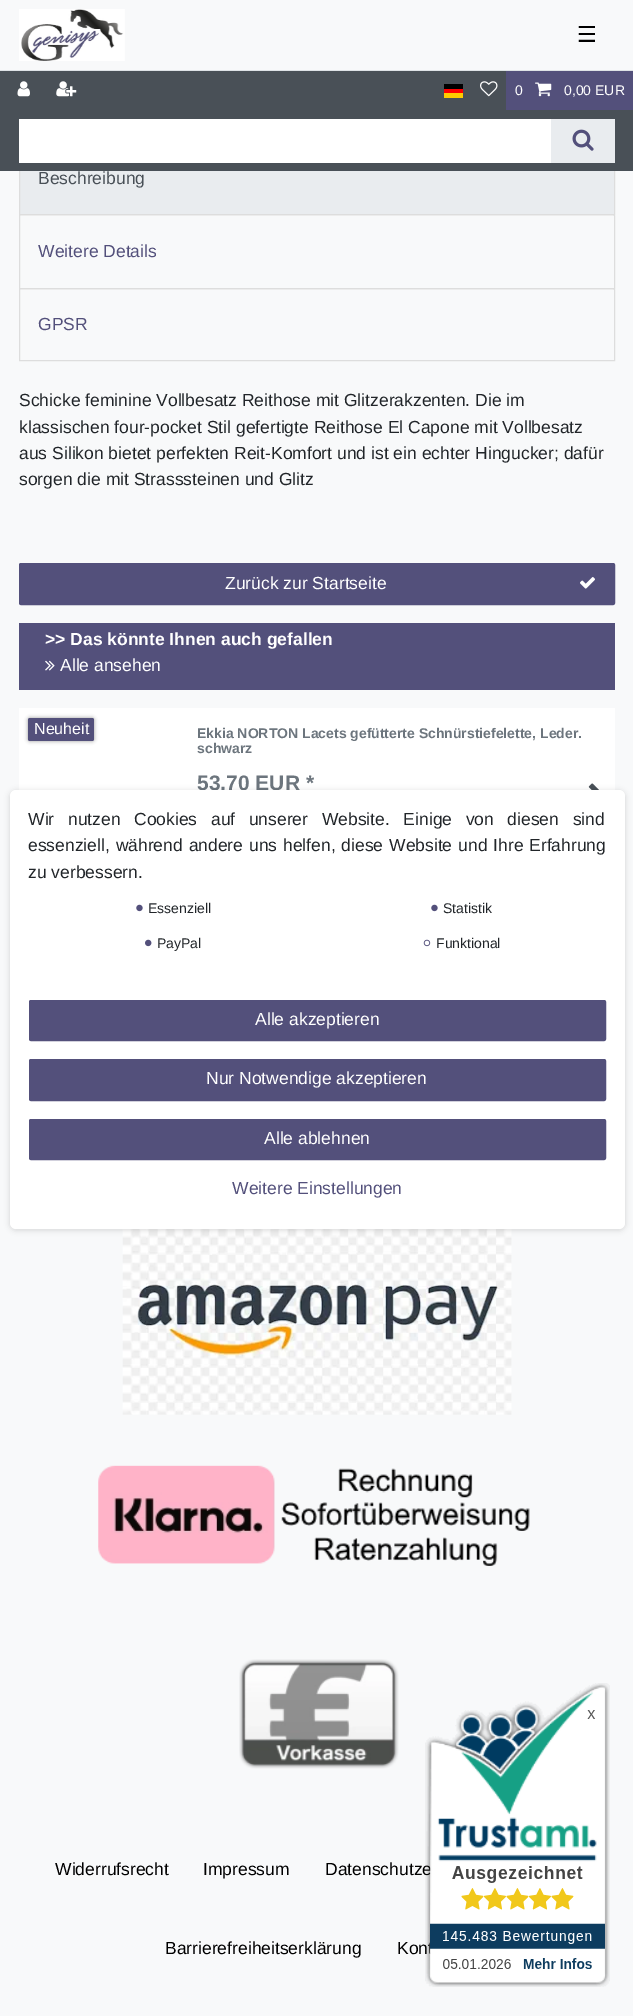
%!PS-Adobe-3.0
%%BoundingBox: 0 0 633 2016
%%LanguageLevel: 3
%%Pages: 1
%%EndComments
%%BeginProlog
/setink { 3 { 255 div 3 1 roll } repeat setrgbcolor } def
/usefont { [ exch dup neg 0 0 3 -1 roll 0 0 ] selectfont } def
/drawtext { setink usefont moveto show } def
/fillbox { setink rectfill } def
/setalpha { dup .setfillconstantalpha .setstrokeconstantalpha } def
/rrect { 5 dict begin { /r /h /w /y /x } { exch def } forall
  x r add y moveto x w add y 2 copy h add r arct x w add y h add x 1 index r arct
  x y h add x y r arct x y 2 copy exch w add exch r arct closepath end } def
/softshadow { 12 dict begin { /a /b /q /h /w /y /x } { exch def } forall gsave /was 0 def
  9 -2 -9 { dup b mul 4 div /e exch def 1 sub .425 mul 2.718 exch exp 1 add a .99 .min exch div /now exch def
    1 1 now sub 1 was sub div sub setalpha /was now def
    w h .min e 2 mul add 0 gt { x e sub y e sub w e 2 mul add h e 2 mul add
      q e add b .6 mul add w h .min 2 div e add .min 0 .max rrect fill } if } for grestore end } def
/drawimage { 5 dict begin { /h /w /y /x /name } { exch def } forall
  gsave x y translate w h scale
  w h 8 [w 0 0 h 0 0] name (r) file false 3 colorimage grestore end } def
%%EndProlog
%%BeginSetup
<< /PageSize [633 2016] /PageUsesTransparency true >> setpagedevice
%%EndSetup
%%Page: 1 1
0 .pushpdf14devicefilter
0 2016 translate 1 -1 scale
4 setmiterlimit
0 0 633 2016 248 249 250 fillbox
0 70 633 1 222 226 230 fillbox
(assets/img1.rgb) 19 9 106 52 drawimage
(☰) 577 42 /DejaVuSans-Regular 22 0 0 0 drawtext
20 171 594 43 233 236 239 fillbox
221 221 221 setink
19.5 141.5 595 73 rectstroke
0 71 633 100 73 80 87 fillbox
(assets/img2.rgb) 17 81 13 16 drawimage
(assets/img3.rgb) 56 81 21 16 drawimage
444 93 19 5 255 204 0 fillbox
444 84 19 5 0 0 0 fillbox
444 89 19 4 255 0 0 fillbox
(assets/img4.rgb) 480 81 18 16 drawimage
506 71 127 39 83 80 123 fillbox
(0) 515 95 /LiberationSans-Regular 14 255 255 255 drawtext
(assets/img5.rgb) 535 82 17 15 drawimage
(0,00 EUR) 564 95 /LiberationSans-Regular 14 255 255 255 drawtext
19 119 532 44 255 255 255 fillbox
551 119 64 44 233 236 239 fillbox
(assets/img6.rgb) 572 129 22 22 drawimage
(Beschreibung) 38 184 /LiberationSans-Regular 17.5 73 80 87 drawtext
221 221 221 setink
21 214.5 moveto 613 214.5 lineto 614 214.5 614.5 215 614.5 216 curveto 614.5 288.5 lineto 19.5 288.5 lineto 19.5 216 lineto 19.5 215 20 214.5 21 214.5 curveto closepath stroke
(Weitere Details) 38 257 /LiberationSans-Regular 17.5 83 80 123 drawtext
221 221 221 setink
21 288.5 moveto 613 288.5 lineto 614 288.5 614.5 289 614.5 290 curveto 614.5 360.5 lineto 19.5 360.5 lineto 19.5 290 lineto 19.5 289 20 288.5 21 288.5 curveto closepath stroke
(GPSR) 38 330 /LiberationSans-Regular 17.5 83 80 123 drawtext
(Schicke feminine Vollbesatz Reithose mit Glitzerakzenten. Die im) 19 406 /LiberationSans-Regular 17.5 33 37 41 drawtext
(klassischen four-pocket Stil gefertigte Reithose El Capone mit Vollbesatz) 19 433 /LiberationSans-Regular 17.5 33 37 41 drawtext
(aus Silikon bietet perfekten Reit-Komfort und ist ein echter Hingucker; dafür) 19 459 /LiberationSans-Regular 17.5 33 37 41 drawtext
(sorgen die mit Strasssteinen und Glitz) 19 485 /LiberationSans-Regular 17.5 33 37 41 drawtext
83 80 123 setink
19.5 563.5 595 41 1.5 rrect gsave fill grestore
stroke
(Zurück zur Startseite) 225 589 /LiberationSans-Regular 17.5 255 255 255 drawtext
(assets/img7.rgb) 580 577 15 12 drawimage
19 623 596 67 83 80 123 fillbox
(>> Das könnte Ihnen auch gefallen) 45 645 /LiberationSans-Bold 17.5 255 255 255 drawtext
(assets/img8.rgb) 45 660 10 11 drawimage
(Alle ansehen) 60 671 /LiberationSans-Regular 17.5 255 255 255 drawtext
19 708 596 82 255 255 255 fillbox
0 0 0 setink
28 718 66 23 2 2 0.4 softshadow
83 80 123 setink
28 718 66 23 2 rrect fill
(Neuheit) 34 734 /LiberationSans-Regular 16 255 255 255 drawtext
(Ekkia NORTON Lacets gefütterte Schnürstiefelette, Leder.) 197 738 /LiberationSans-Bold 14 108 117 125 drawtext
(schwarz) 197 753 /LiberationSans-Bold 14 108 117 125 drawtext
(53,70 EUR *) 197 790 /LiberationSans-Bold 21 108 117 125 drawtext
(assets/img9.rgb) 588 783 11 7 drawimage
(assets/img10.rgb) 122 1229 390 186 drawimage
(assets/img11.rgb) 98 1465 432 101 drawimage
(assets/img12.rgb) 239 1659 160 110 drawimage
(Widerrufsrecht) 55 1875 /LiberationSans-Regular 17.5 0 0 0 drawtext
(Impressum) 203 1875 /LiberationSans-Regular 17.5 0 0 0 drawtext
(Datenschutze) 325 1875 /LiberationSans-Regular 17.5 0 0 0 drawtext
(Barrierefreiheitserklärung) 165 1954 /LiberationSans-Regular 17.5 0 0 0 drawtext
(Kon) 397 1954 /LiberationSans-Regular 17.5 0 0 0 drawtext
10 791 615 439 6 3 0.15 softshadow
255 255 255 setink
10 790 615 439 6 rrect fill
33 37 41 setink
28 825 moveto 8.75 0 32 (Wir nutzen Cookies auf unserer Website. Einige von diesen sind) widthshow
28 851 moveto 1 0 32 (essenziell, während andere uns helfen, diese Website und Ihre Erfahrung) widthshow
(zu verbessern.) 28 878 /LiberationSans-Regular 17.5 33 37 41 drawtext
(assets/img13.rgb) 136 904 7 8 drawimage
(Essenziell) 148 913 /LiberationSans-Regular 14 33 37 41 drawtext
(assets/img13.rgb) 431 904 7 8 drawimage
(Statistik) 443 913 /LiberationSans-Regular 14 33 37 41 drawtext
(assets/img14.rgb) 145 939 7 8 drawimage
(PayPal) 157 948 /LiberationSans-Regular 14 33 37 41 drawtext
(assets/img15.rgb) 423 939 8 8 drawimage
(Funktional) 436 948 /LiberationSans-Regular 14 33 37 41 drawtext
83 80 123 setink
29.5 1000.5 576 40 1.5 rrect gsave fill grestore
stroke
(Alle akzeptieren) 255 1025 /LiberationSans-Regular 17.5 255 255 255 drawtext
83 80 123 setink
29.5 1059.5 576 41 1.5 rrect gsave fill grestore
stroke
(Nur Notwendige akzeptieren) 206 1084 /LiberationSans-Regular 17.5 255 255 255 drawtext
83 80 123 setink
29.5 1119.5 576 40 1.5 rrect gsave fill grestore
stroke
(Alle ablehnen) 264 1144 /LiberationSans-Regular 17.5 255 255 255 drawtext
(Weitere Einstellungen) 232 1194 /LiberationSans-Regular 17.5 83 80 123 drawtext
(assets/img16.rgb) 425 1683 185 304 drawimage
.poppdf14devicefilter showpage
%%EOF
